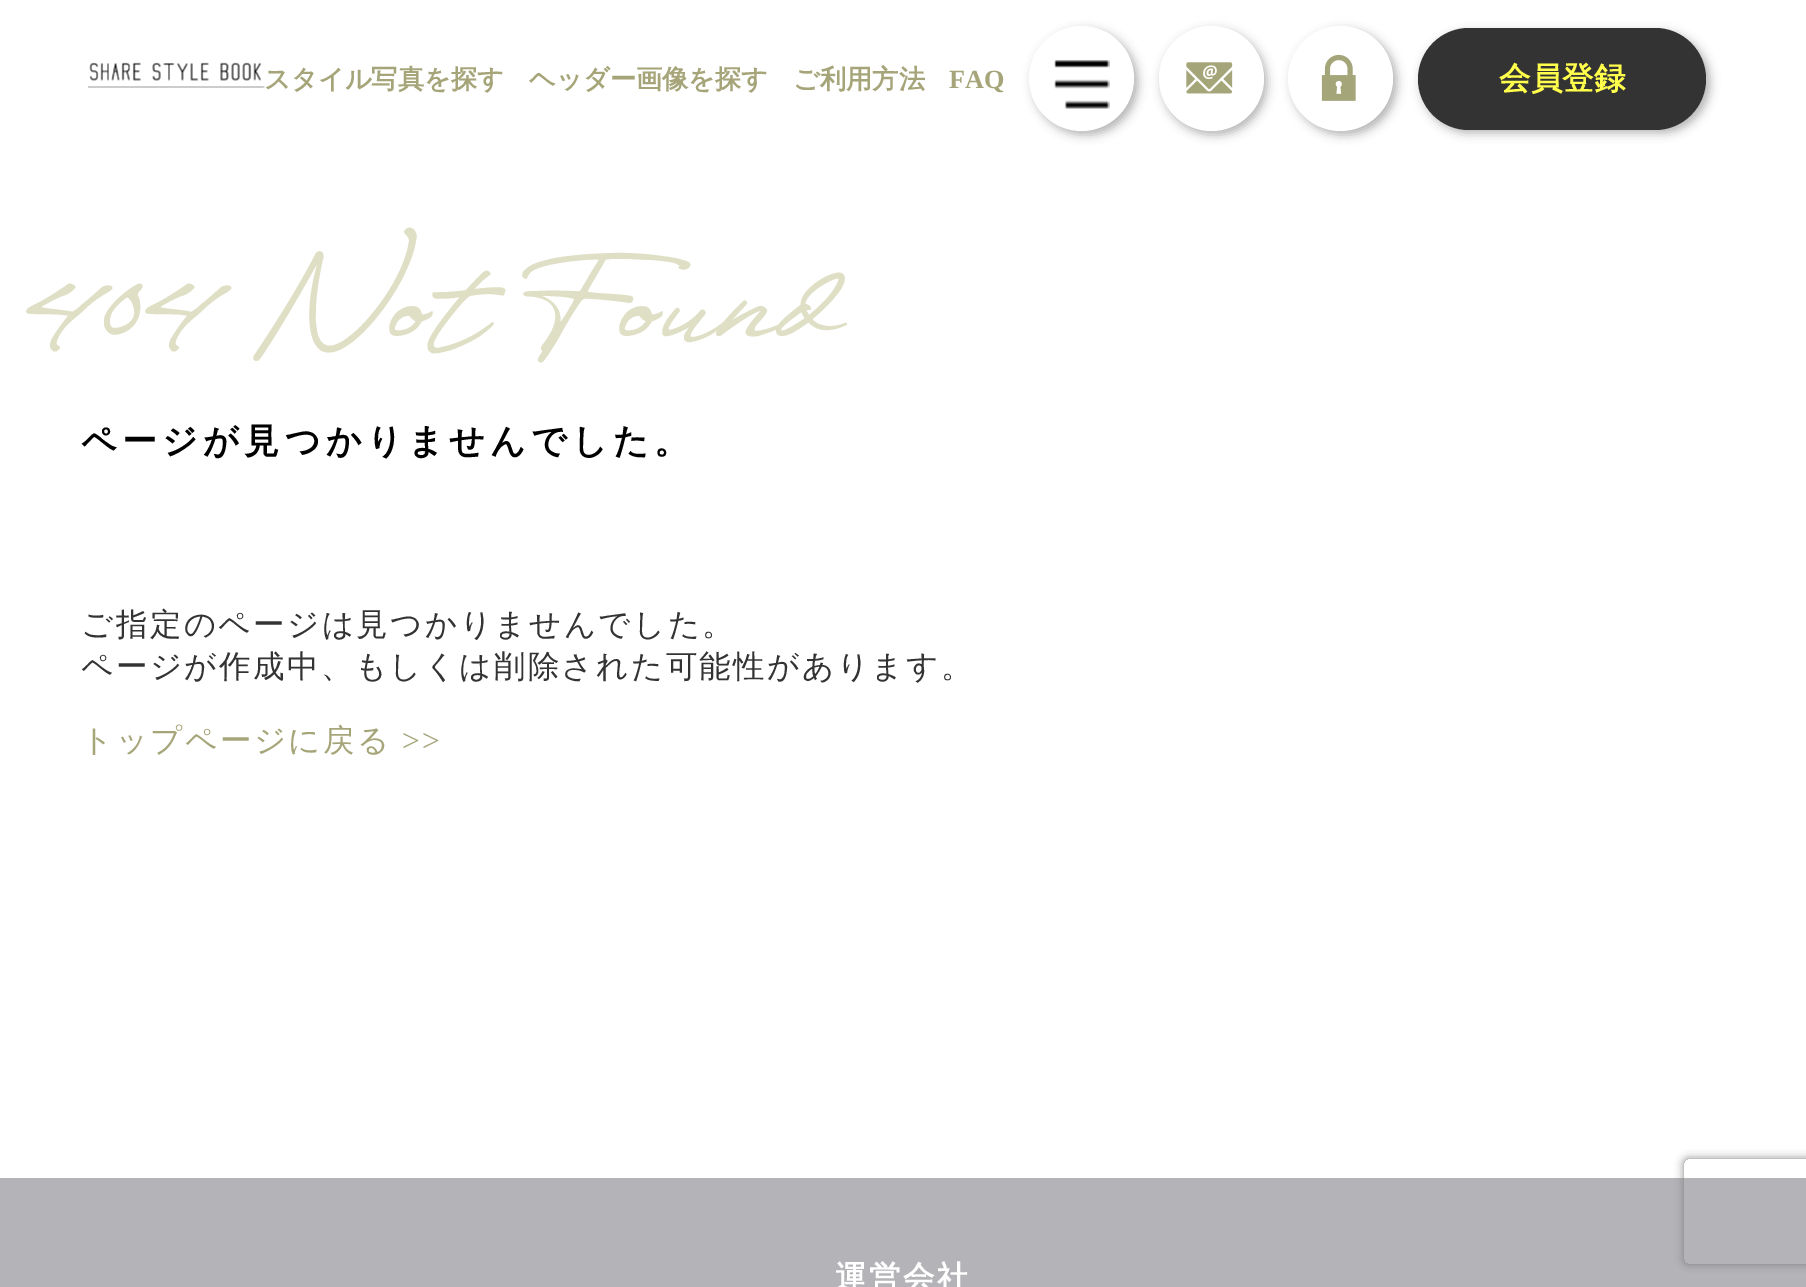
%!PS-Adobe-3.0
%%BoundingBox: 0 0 1806 1287
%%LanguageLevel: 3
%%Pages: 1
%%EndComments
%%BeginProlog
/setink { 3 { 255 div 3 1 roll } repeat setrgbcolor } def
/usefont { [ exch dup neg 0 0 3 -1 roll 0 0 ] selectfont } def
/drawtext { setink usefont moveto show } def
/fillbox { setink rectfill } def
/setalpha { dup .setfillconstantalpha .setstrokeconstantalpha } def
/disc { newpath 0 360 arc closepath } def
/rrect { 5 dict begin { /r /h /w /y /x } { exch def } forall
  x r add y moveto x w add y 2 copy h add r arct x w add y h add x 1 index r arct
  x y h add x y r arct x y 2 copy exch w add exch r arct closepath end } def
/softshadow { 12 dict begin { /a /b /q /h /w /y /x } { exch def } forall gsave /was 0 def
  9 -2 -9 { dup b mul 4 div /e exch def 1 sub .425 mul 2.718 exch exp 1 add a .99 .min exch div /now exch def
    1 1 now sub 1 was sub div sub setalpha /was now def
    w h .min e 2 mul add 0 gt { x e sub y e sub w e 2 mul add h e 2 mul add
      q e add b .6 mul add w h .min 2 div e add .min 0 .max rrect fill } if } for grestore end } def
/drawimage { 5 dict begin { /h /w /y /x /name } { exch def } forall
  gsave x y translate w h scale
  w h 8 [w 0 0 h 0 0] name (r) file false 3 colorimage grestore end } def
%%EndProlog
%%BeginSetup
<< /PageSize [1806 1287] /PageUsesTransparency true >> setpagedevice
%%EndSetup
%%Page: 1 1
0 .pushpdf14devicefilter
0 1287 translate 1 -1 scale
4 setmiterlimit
0 0 1806 1287 255 255 255 fillbox
(assets/img1.rgb) 88 62 177 26 drawimage
(スタイル写真を探す) 264 88 /WenQuanYiZenHei-Bold 26.25 165 165 121 drawtext
(ヘッダー画像を探す) 529 88 /WenQuanYiZenHei-Bold 26.25 165 165 121 drawtext
(ご利用方法) 793 88 /WenQuanYiZenHei-Bold 26.25 165 165 121 drawtext
(FAQ) 949 88 /LiberationSerif-Bold 26.25 165 165 121 drawtext
0 0 0 setink
1033 30 105 105 52.5 5 0.3 softshadow
255 255 255 setink
1081.5 78.5 52.5 disc fill
(assets/img2.rgb) 1054 60 56 49 drawimage
0 0 0 setink
1162 30 105 105 52.5 5 0.3 softshadow
255 255 255 setink
1211.5 78.5 52.5 disc fill
(assets/img3.rgb) 1186 62 47 32 drawimage
0 0 0 setink
1292 30 105 105 52.5 5 0.3 softshadow
255 255 255 setink
1340.5 78.5 52.5 disc fill
(assets/img4.rgb) 1321 54 35 47 drawimage
0 0 0 setink
1421 32 289 101 50.5 5 0.3 softshadow
51 51 51 setink
1418 28 288 102 51 rrect fill
(会員登録) 1499 89 /WenQuanYiZenHei-Bold 31.5 255 255 76 drawtext
(404 Not Found) 26 336 /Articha-Regular 122.5 222 223 197 drawtext
/WenQuanYiZenHei-Bold 35 usefont
0 0 0 setink
81 453 moveto 5.25 0 (ページが見つかりませんでした。) ashow
/WenQuanYiZenHei-Medium 31.5 usefont
51 51 51 setink
81 635 moveto 2.45 0 (ご指定のページは見つかりませんでした。) ashow
81 677 moveto 2.45 0 (ページが作成中、もしくは削除された可能性があります。) ashow
165 165 121 setink
81 751 moveto 2.45 0 (トップページに戻る) ashow
/LiberationSerif-Regular 31.5 usefont
402 751 moveto 2.45 0 (>>) ashow
0 1178 1806 109 180 180 184 fillbox
/WenQuanYiZenHei-Bold 31.5 usefont
255 255 255 setink
835 1288 moveto 2.45 0 (運営会社) ashow
gsave
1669 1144 moveto 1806 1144 lineto 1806 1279 lineto 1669 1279 lineto closepath 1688 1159 moveto 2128 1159 lineto 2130 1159 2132 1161 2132 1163 curveto 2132 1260 lineto 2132 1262 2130 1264 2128 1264 curveto 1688 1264 lineto 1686 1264 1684 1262 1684 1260 curveto 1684 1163 lineto 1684 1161 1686 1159 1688 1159 curveto closepath eoclip newpath
128 128 128 setink
1684 1159 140 105 4 4.5 1 softshadow
grestore
.poppdf14devicefilter showpage
%%EOF
